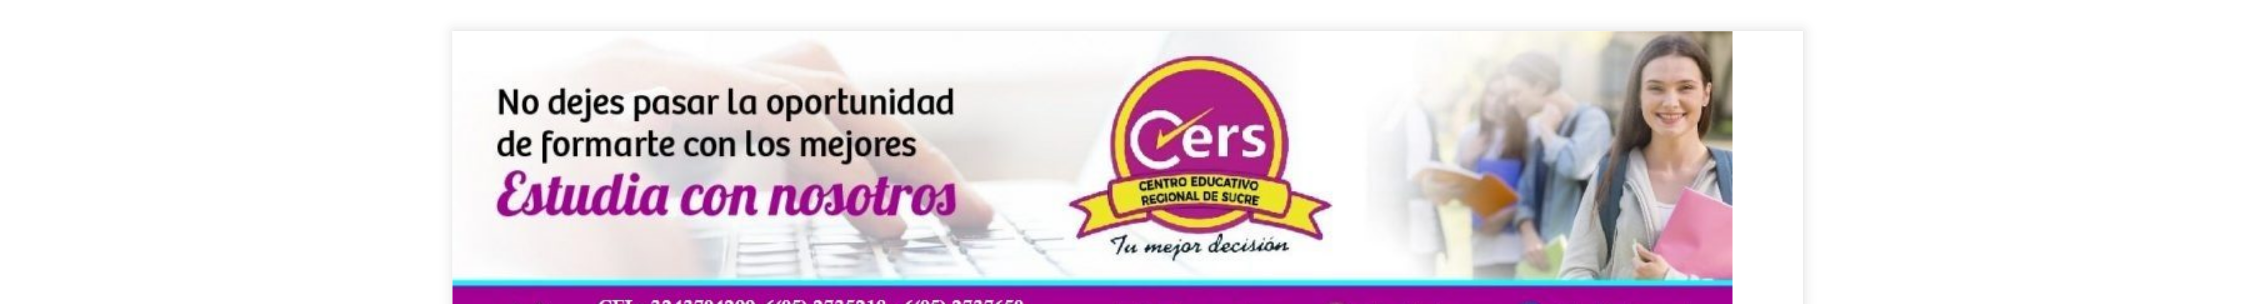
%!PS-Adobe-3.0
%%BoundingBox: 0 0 2255 304
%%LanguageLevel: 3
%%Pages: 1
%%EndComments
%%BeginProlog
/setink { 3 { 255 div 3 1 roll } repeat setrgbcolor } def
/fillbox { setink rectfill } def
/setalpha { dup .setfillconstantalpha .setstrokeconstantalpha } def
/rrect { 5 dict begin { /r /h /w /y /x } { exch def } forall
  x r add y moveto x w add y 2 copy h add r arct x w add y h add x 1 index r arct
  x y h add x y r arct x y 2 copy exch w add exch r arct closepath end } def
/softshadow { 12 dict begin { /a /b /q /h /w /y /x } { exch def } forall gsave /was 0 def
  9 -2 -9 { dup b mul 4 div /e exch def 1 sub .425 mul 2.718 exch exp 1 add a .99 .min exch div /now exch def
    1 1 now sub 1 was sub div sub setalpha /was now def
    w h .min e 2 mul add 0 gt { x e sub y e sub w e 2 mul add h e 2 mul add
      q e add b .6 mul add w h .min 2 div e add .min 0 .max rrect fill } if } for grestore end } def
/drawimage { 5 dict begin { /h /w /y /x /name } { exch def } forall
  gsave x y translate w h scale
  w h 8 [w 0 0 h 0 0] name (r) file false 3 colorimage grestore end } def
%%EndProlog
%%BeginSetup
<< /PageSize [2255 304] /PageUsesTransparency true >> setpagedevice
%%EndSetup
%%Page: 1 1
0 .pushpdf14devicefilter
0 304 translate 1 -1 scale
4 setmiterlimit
0 0 2255 304 255 255 255 fillbox
50 50 50 setink
453 31 1350 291 0 6 0.17 softshadow
453 31 1350 273 255 255 255 fillbox
(assets/img1.rgb) 452 31 1281 273 drawimage
.poppdf14devicefilter showpage
%%EOF
